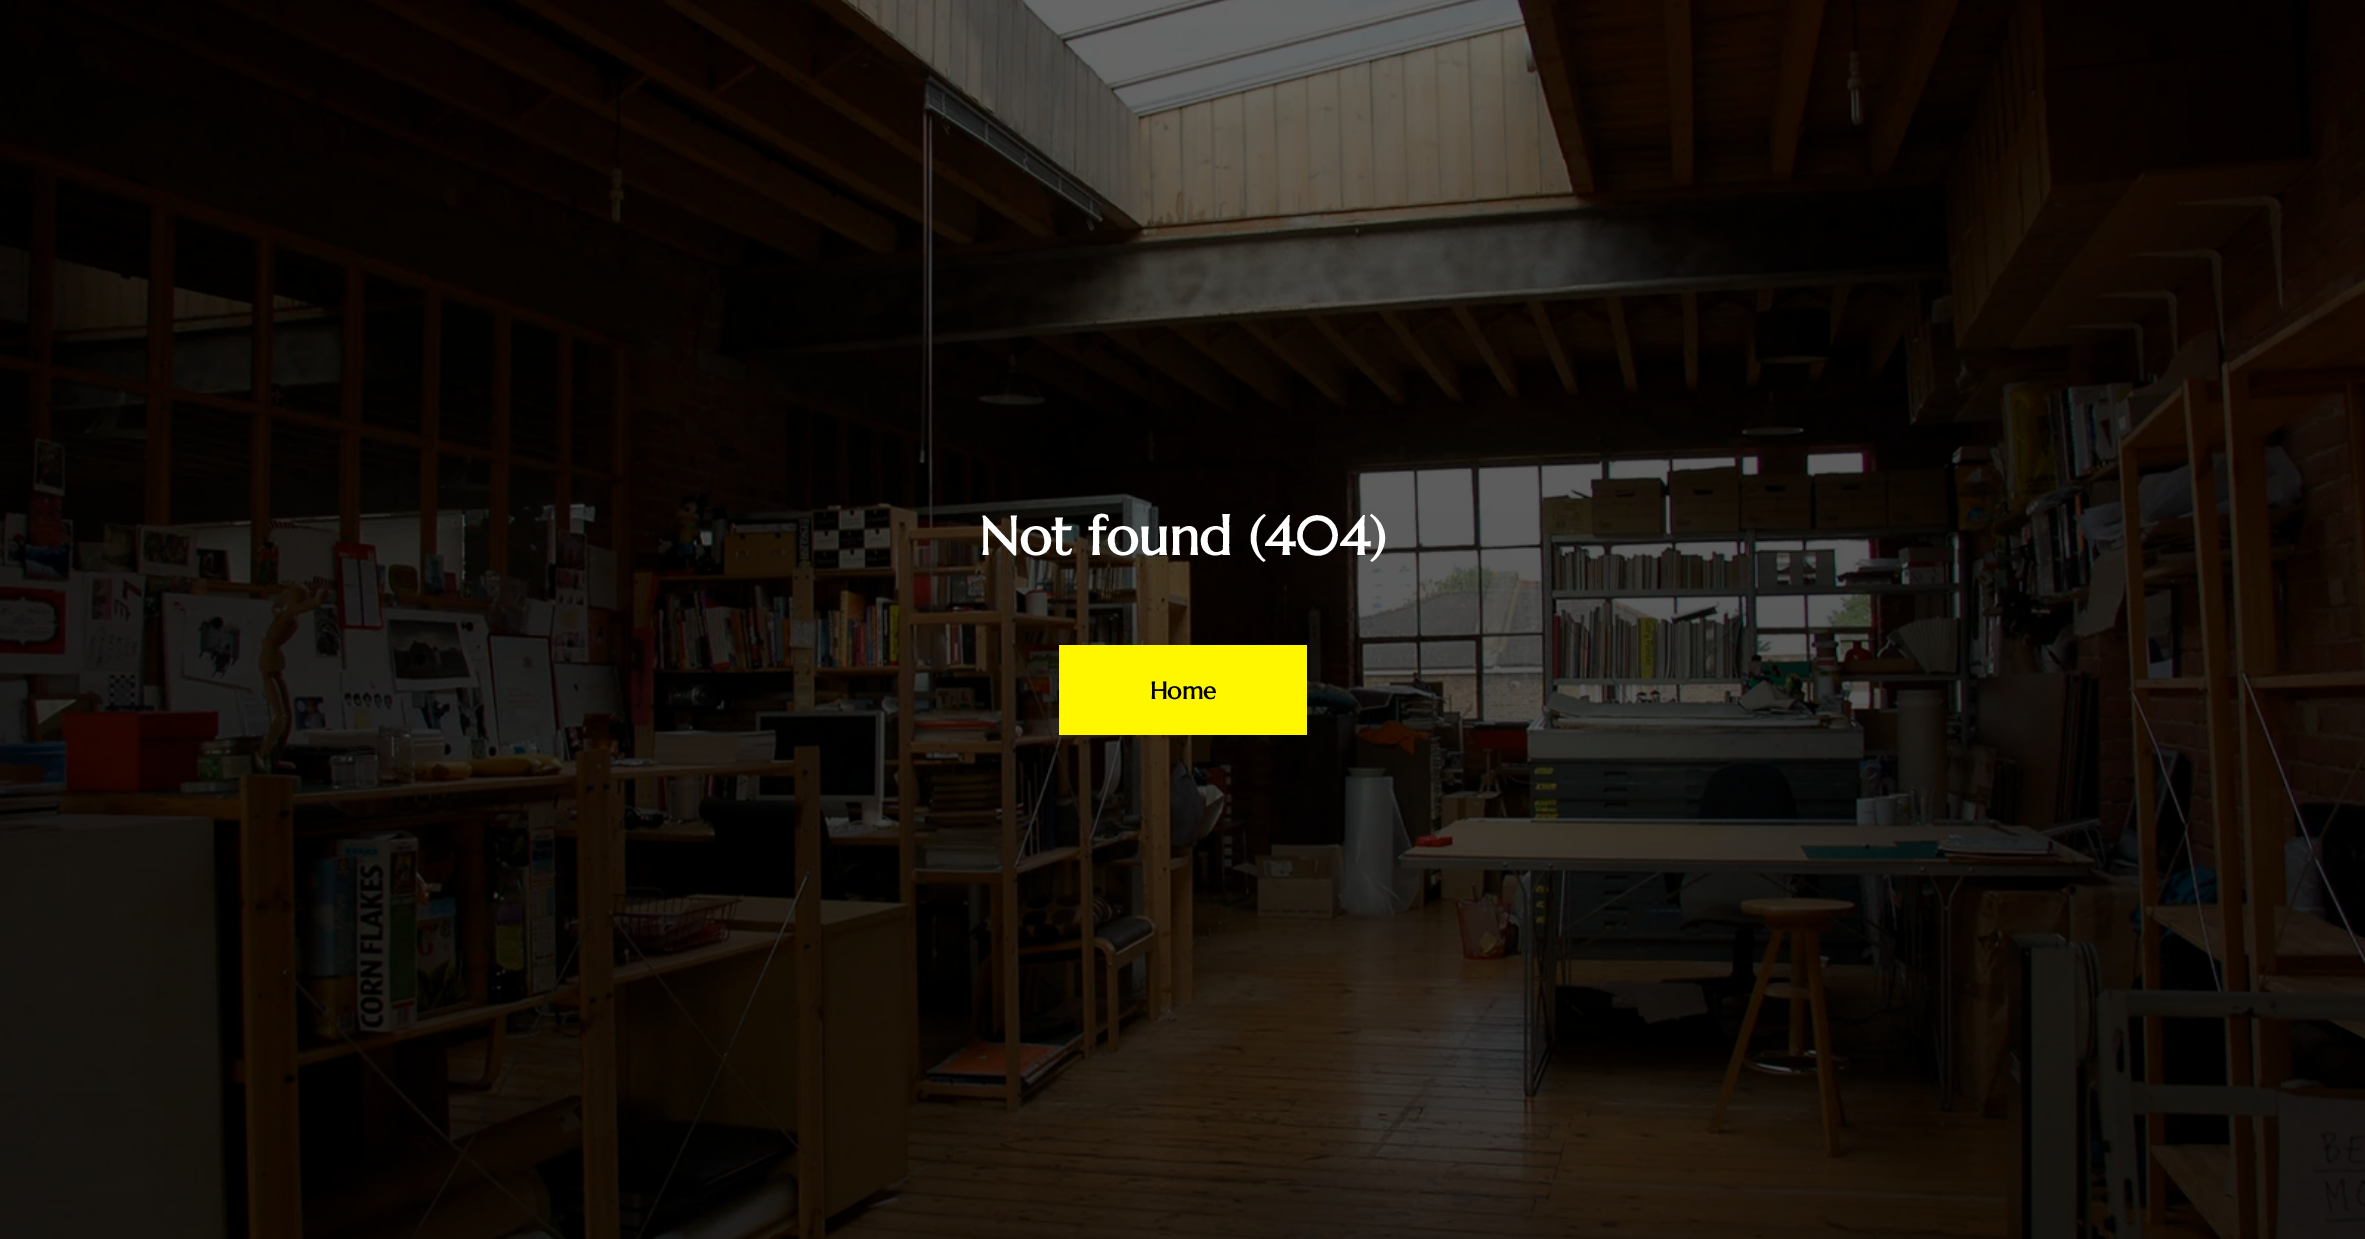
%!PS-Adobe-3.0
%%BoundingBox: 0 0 2365 1239
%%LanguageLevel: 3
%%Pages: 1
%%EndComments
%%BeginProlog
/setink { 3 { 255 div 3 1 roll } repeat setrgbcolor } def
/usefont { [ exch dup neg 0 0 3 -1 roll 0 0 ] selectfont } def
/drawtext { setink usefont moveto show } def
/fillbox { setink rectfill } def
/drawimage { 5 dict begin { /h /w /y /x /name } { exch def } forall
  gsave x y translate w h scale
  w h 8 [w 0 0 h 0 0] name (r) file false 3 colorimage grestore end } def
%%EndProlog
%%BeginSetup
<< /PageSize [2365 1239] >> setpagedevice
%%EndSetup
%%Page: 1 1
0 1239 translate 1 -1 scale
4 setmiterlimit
0 0 2365 1239 255 255 255 fillbox
(assets/img1.rgb) 0 0 2365 1239 drawimage
(Not found \(404\)) 979 555 /Marcellus-Bold 54 255 255 255 drawtext
1059 645 248 90 255 247 0 fillbox
(Home) 1150 699 /Marcellus-Bold 24 0 0 0 drawtext
showpage
%%EOF
